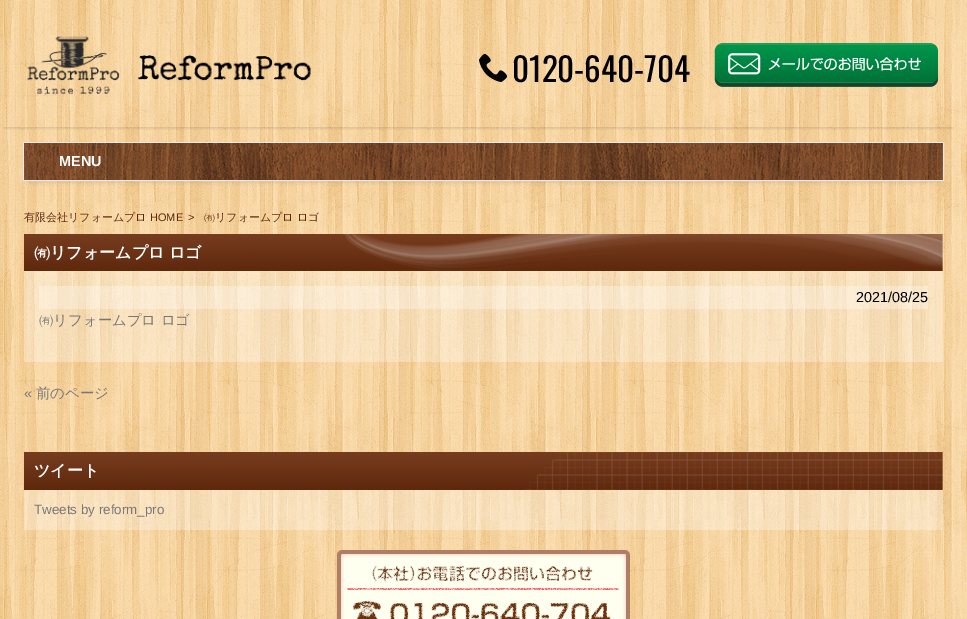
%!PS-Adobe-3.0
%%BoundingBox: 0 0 967 619
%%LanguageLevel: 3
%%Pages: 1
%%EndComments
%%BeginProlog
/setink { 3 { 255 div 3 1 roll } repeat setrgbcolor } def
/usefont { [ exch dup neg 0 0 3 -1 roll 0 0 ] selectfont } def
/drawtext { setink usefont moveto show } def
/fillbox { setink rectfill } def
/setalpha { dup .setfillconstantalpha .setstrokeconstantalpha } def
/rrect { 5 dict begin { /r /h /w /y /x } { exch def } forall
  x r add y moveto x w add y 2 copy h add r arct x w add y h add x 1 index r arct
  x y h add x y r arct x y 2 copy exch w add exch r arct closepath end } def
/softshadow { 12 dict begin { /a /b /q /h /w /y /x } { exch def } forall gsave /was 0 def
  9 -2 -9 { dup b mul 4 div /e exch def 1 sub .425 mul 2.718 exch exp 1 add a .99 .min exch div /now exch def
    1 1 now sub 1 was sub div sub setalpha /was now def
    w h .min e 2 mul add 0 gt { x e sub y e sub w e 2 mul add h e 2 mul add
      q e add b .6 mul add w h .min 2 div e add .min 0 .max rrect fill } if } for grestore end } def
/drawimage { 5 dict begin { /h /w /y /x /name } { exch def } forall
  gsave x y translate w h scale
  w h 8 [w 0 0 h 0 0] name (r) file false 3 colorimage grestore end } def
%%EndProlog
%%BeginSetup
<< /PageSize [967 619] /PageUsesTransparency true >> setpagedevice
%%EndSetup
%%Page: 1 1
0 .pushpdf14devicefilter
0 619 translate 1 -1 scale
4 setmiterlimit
0 0 967 619 255 255 255 fillbox
(assets/img1.rgb) 0 0 967 619 drawimage
gsave
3 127 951 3 rectclip
0 0 0 setink
5 10 947 117 0 2.5 0.2 softshadow
grestore
(assets/img2.rgb) 26 36 285 59 drawimage
(assets/img3.rgb) 479 54 28 28 drawimage
(0120-640-704) 512 82 /Oswald-Regular 33 0 0 0 drawtext
(assets/img4.rgb) 714 43 224 44 drawimage
28 152 911 29 0 2.5 0.2 softshadow
232 232 232 setink
23.5 142.5 920 38 rectstroke
(assets/img5.rgb) 24 143 919 37 drawimage
(MENU) 59 166 /LiberationSans-Bold 14.4 255 255 255 drawtext
(有限会社リフォームプロ) 24 221 /WenQuanYiZenHei-Medium 11 94 40 13 drawtext
(HOME) 150 221 /LiberationSans-Regular 11 94 40 13 drawtext
(>) 188 221 /LiberationSans-Regular 11 94 40 13 drawtext
(㈲リフォームプロ ロゴ) 204 221 /WenQuanYiZenHei-Medium 11 94 40 13 drawtext
(assets/img6.rgb) 24 234 919 37 drawimage
(㈲リフォームプロ ロゴ) 34 258 /WenQuanYiZenHei-Bold 16 255 255 255 drawtext
0.3 setalpha
24 271 919 91 255 255 255 fillbox
39 286 889 23 255 255 255 fillbox
1 setalpha
(2021/08/25) 856 302 /LiberationSans-Regular 14.4 0 0 0 drawtext
(㈲リフォームプロ ロゴ) 39 325 /WenQuanYiZenHei-Medium 14.4 119 119 119 drawtext
(«) 24 398 /LiberationSans-Regular 14.4 119 119 119 drawtext
(前のページ) 36 398 /WenQuanYiZenHei-Medium 14.4 119 119 119 drawtext
(assets/img7.rgb) 24 452 919 38 drawimage
(ツイート) 34 476 /WenQuanYiZenHei-Bold 16 255 255 255 drawtext
0.3 setalpha
24 490 919 40 255 255 255 fillbox
1 setalpha
(Tweets by reform_pro) 34 514 /LiberationSans-Regular 13.4 119 119 119 drawtext
(assets/img8.rgb) 337 550 293 69 drawimage
.poppdf14devicefilter showpage
%%EOF
